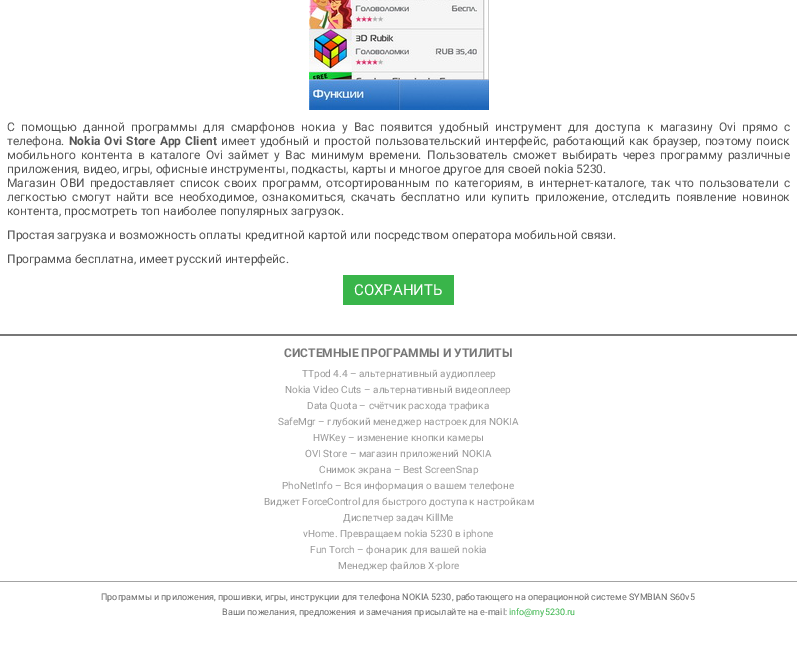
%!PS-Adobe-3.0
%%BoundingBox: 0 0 797 657
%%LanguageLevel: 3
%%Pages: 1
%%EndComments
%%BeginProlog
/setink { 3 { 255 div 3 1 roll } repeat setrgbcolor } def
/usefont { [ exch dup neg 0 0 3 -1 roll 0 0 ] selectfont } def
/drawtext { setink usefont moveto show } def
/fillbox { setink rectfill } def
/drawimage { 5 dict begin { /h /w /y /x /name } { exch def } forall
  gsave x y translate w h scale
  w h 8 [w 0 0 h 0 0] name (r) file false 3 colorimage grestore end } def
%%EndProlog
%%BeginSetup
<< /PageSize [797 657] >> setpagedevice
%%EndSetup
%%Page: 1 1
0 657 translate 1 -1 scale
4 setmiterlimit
0 0 797 657 255 255 255 fillbox
(assets/img1.rgb) 309 0 180 110 drawimage
/Roboto-Regular 12 usefont
85 85 85 setink
7 131 moveto 3.4 0 32 (C помощью данной программы для смарфонов нокиа у Вас появится удобный инструмент для доступа к магазину Ovi прямо с) widthshow
(телефона.) 7 145 /Roboto-Regular 12 85 85 85 drawtext
/Roboto-Bold 12 usefont
69 145 moveto 1.25 0 32 (Nokia Ovi Store App Client) widthshow
/Roboto-Regular 12 usefont
221 145 moveto 1.25 0 32 (имеет удобный и простой пользовательский интерфейс, работающий как браузер, поэтому поиск) widthshow
7 159 moveto 2.4 0 32 (мобильного контента в каталоге Ovi займет у Вас минимум времени. Пользователь сможет выбирать через программу различные) widthshow
(приложения, видео, игры, офисные инструменты, подкасты, карты и многое другое для своей nokia 5230.) 7 173 /Roboto-Regular 12 85 85 85 drawtext
7 187 moveto 1.9 0 32 (Магазин ОВИ предоставляет список своих программ, отсортированным по категориям, в интернет-каталоге, так что пользователи с) widthshow
7 201 moveto 2.25 0 32 (легкостью смогут найти все необходимое, ознакомиться, скачать бесплатно или купить приложение, отследить появление новинок) widthshow
(контента, просмотреть топ наиболее популярных загрузок.) 7 215 /Roboto-Regular 12 85 85 85 drawtext
(Простая загрузка и возможность оплаты кредитной картой или посредством оператора мобильной связи.) 7 239 /Roboto-Regular 12 85 85 85 drawtext
(Программа бесплатна, имеет русский интерфейс.) 7 263 /Roboto-Regular 12 85 85 85 drawtext
343 275 111 30 57 181 74 fillbox
(СОХРАНИТЬ) 354 295 /Roboto-Regular 15 255 255 255 drawtext
0 334 797 2 119 119 119 fillbox
(СИСТЕМНЫЕ ПРОГРАММЫ И УТИЛИТЫ) 284 357 /Roboto-Bold 12 119 119 119 drawtext
(TTpod 4.4 – альтернативный аудиоплеер) 302 377 /Roboto-Regular 10 153 153 153 drawtext
(Nokia Video Cuts – альтернативный видеоплеер) 285 393 /Roboto-Regular 10 153 153 153 drawtext
(Data Quota – счётчик расхода трафика) 307 409 /Roboto-Regular 10 153 153 153 drawtext
(SafeMgr – глубокий менеджер настроек для NOKIA) 278 425 /Roboto-Regular 10 153 153 153 drawtext
(HWKey – изменение кнопки камеры) 313 441 /Roboto-Regular 10 153 153 153 drawtext
(OVI Store – магазин приложений NOKIA) 305 457 /Roboto-Regular 10 153 153 153 drawtext
(Cнимок экрана – Best ScreenSnap) 319 473 /Roboto-Regular 10 153 153 153 drawtext
(PhoNetInfo – Вся информация о вашем телефоне) 282 489 /Roboto-Regular 10 153 153 153 drawtext
(Виджет ForceControl для быстрого доступа к настройкам) 264 505 /Roboto-Regular 10 153 153 153 drawtext
(Диспетчер задач KillMe) 343 521 /Roboto-Regular 10 153 153 153 drawtext
(vHome. Превращаем nokia 5230 в iphone) 303 537 /Roboto-Regular 10 153 153 153 drawtext
(Fun Torch – фонарик для вашей nokia) 310 553 /Roboto-Regular 10 153 153 153 drawtext
(Менеджер файлов X-plore) 338 569 /Roboto-Regular 10 153 153 153 drawtext
0 581 797 1 163 163 163 fillbox
(Программы и приложения, прошивки, игры, инструкции для телефона NOKIA 5230, работающего на операционной системе SYMBIAN S60v5) 101 600 /Roboto-Regular 9 102 102 102 drawtext
(Ваши пожелания, предложения и замечания присылайте на e-mail:) 222 615 /Roboto-Regular 9 102 102 102 drawtext
(info@my5230.ru) 509 615 /Roboto-Regular 9 57 181 74 drawtext
showpage
%%EOF
